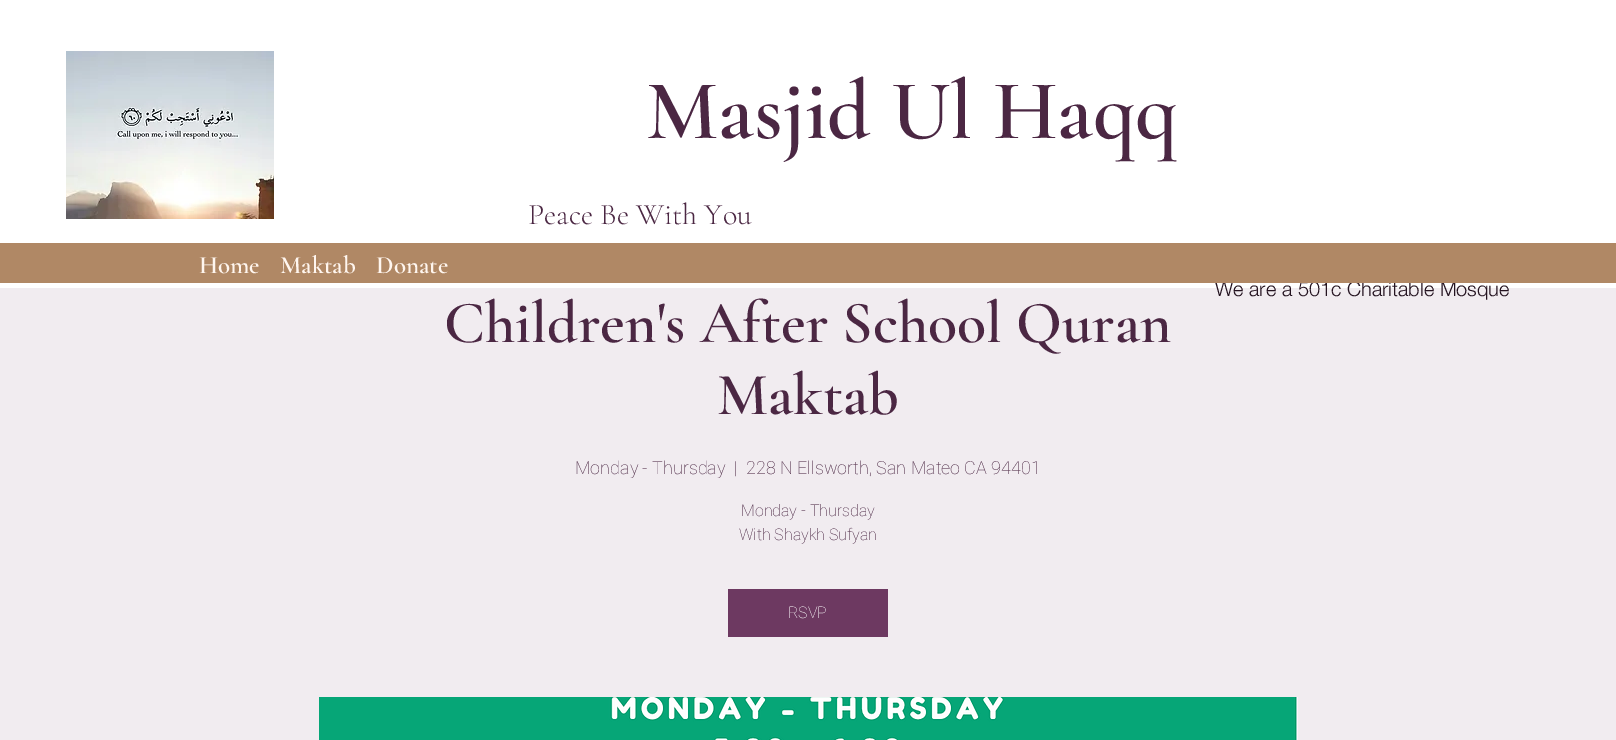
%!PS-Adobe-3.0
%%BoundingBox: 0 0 1616 740
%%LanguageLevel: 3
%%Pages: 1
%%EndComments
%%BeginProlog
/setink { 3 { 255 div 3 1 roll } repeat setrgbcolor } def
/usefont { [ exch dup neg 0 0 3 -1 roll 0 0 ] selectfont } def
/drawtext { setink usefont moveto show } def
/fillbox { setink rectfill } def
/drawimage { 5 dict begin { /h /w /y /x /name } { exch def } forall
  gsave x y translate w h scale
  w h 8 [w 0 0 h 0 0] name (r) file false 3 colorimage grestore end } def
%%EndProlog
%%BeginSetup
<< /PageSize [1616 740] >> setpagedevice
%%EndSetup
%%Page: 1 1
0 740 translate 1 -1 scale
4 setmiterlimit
0 0 1616 740 241 236 240 fillbox
0 0 1616 288 255 255 255 fillbox
(We are a 501c Charitable Mosque) 1215 296 /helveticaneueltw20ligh-Light 20 36 19 32 drawtext
0 243 1616 40 176 136 101 fillbox
(Home) 199 273 /CormorantGaramond-SemiBold 25 255 246 239 drawtext
(Maktab) 280 273 /CormorantGaramond-SemiBold 25 255 246 239 drawtext
(Donate) 376 273 /CormorantGaramond-SemiBold 25 255 246 239 drawtext
(assets/img1.rgb) 66 51 208 168 drawimage
(Masjid Ul Haqq) 646 138 /CormorantGaramond-SemiBold 85 75 39 67 drawtext
(Peace Be With You) 528 224 /CormorantGaramond-Light 30 75 39 67 drawtext
(Children's After School Quran) 444 342 /CormorantGaramond-SemiBold 60 75 39 67 drawtext
(Maktab) 717 414 /CormorantGaramond-SemiBold 60 75 39 67 drawtext
(Monday - Thursday) 575 474 /Roboto-Thin 18 75 39 67 drawtext
(|) 734 474 /Roboto-Thin 18 75 39 67 drawtext
(228 N Ellsworth, San Mateo CA 94401) 746 474 /Roboto-Thin 18 75 39 67 drawtext
(Monday - Thursday) 741 516 /Roboto-Thin 16 75 39 67 drawtext
(With Shaykh Sufyan) 739 540 /Roboto-Thin 16 75 39 67 drawtext
728 589 160 48 109 57 97 fillbox
(RSVP) 788 618 /Roboto-Thin 16 255 255 255 drawtext
(assets/img2.rgb) 319 697 979 43 drawimage
showpage
%%EOF
